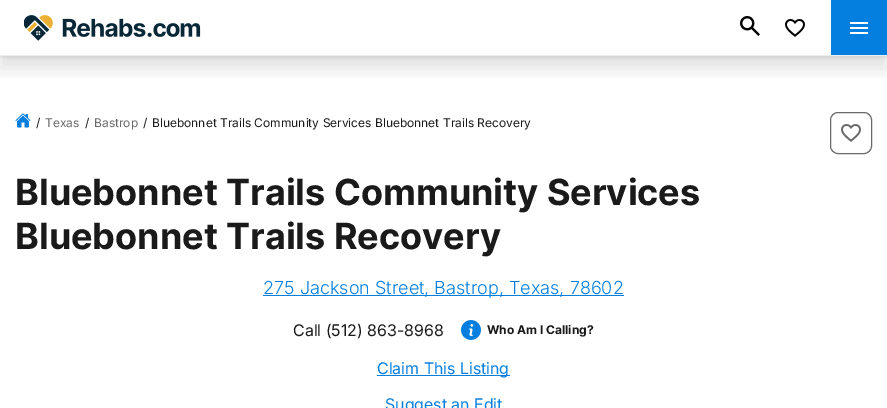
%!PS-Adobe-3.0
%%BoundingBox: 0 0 887 408
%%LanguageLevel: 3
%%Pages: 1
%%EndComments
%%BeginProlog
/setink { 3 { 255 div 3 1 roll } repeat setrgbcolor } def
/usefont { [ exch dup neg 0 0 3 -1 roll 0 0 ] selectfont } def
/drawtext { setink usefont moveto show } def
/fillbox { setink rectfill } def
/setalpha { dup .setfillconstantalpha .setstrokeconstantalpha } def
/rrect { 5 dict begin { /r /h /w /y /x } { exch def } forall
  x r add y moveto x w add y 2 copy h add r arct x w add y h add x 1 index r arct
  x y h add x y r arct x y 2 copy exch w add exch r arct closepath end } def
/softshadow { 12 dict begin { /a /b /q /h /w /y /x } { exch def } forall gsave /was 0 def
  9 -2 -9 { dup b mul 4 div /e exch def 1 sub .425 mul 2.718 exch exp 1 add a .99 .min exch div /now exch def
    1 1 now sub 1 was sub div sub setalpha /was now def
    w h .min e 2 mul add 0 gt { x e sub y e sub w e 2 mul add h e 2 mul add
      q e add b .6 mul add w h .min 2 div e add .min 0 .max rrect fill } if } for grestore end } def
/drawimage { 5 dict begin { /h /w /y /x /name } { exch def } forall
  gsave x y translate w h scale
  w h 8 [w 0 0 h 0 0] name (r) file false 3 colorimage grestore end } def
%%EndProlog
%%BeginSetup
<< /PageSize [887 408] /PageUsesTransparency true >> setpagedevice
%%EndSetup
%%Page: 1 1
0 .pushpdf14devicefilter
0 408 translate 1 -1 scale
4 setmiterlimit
0 0 887 408 255 255 255 fillbox
gsave
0 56 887 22 rectclip
0 0 0 setink
0 12 887 56 0 10 0.12 softshadow
grestore
gsave
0 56 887 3 rectclip
0 0 0 setink
0 1 887 56 0 2 0.1 softshadow
grestore
0 55 887 1 238 238 238 fillbox
(assets/img1.rgb) 24 15 177 26 drawimage
(assets/img2.rgb) 740 16 20 20 drawimage
(assets/img3.rgb) 785 19 20 18 drawimage
831 0 56 55 4 126 223 fillbox
(assets/img4.rgb) 850 22 18 12 drawimage
(assets/img5.rgb) 15 113 16 15 drawimage
(/) 36 127 /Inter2-Regular 12 26 26 26 drawtext
(Texas) 45 127 /Inter2-Regular 12 106 106 106 drawtext
(/) 85 127 /Inter2-Regular 12 26 26 26 drawtext
(Bastrop) 94 127 /Inter2-Regular 12 106 106 106 drawtext
(/) 143 127 /Inter2-Regular 12 26 26 26 drawtext
(Bluebonnet Trails Community Services Bluebonnet Trails Recovery) 152 127 /Inter2-Regular 12 26 26 26 drawtext
106 106 106 setink
830.5 112.5 41 41 7.5 rrect stroke
(assets/img6.rgb) 841 124 20 18 drawimage
(Bluebonnet Trails Community Services) 15 205 /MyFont-Bold 36 26 26 26 drawtext
(Bluebonnet Trails Recovery) 15 249 /MyFont-Bold 36 26 26 26 drawtext
263 295 361 1 4 126 223 fillbox
(275 Jackson Street, Bastrop, Texas, 78602) 263 294 /Inter-Light 18 4 126 223 drawtext
(Call \(512\) 863-8968) 293 336 /Inter-Regular 16 26 26 26 drawtext
(assets/img7.rgb) 461 320 20 20 drawimage
(Who Am I Calling?) 487 334 /MyFont-Bold 12 26 26 26 drawtext
377 375 133 1 4 126 223 fillbox
(Claim This Listing) 377 374 /Inter-Regular 16 4 126 223 drawtext
(Suggest an Edit) 385 410 /Inter-Regular 16 4 126 223 drawtext
.poppdf14devicefilter showpage
%%EOF
